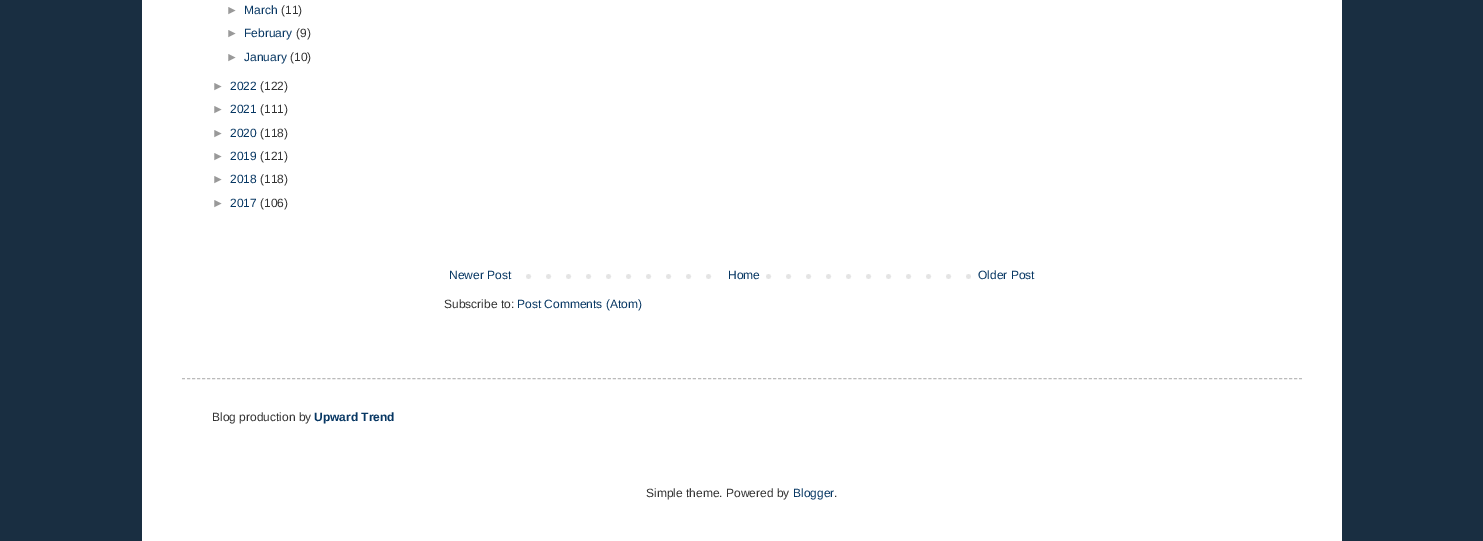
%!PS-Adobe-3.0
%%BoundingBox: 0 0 1483 541
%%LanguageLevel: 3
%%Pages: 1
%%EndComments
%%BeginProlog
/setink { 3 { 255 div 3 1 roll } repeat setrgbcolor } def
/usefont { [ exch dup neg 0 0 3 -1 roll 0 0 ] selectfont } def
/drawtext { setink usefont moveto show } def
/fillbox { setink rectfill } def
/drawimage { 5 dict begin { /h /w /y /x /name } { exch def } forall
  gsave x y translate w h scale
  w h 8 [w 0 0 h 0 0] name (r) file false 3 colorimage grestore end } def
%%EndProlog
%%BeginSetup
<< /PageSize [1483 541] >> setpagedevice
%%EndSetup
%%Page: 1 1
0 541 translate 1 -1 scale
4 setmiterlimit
0 0 1483 541 25 46 65 fillbox
142 0 1200 541 255 255 255 fillbox
(►) 226 14 /LiberationSans-Regular 12 153 153 153 drawtext
(March) 244 14 /LiberationSans-Regular 12 7 55 99 drawtext
(\(11\)) 281 14 /LiberationSans-Regular 12 51 51 51 drawtext
(►) 226 37 /LiberationSans-Regular 12 153 153 153 drawtext
(February) 244 37 /LiberationSans-Regular 12 7 55 99 drawtext
(\(9\)) 296 37 /LiberationSans-Regular 12 51 51 51 drawtext
(►) 226 61 /LiberationSans-Regular 12 153 153 153 drawtext
(January) 244 61 /LiberationSans-Regular 12 7 55 99 drawtext
(\(10\)) 290 61 /LiberationSans-Regular 12 51 51 51 drawtext
(►) 212 90 /LiberationSans-Regular 12 153 153 153 drawtext
(2022) 230 90 /LiberationSans-Regular 12 7 55 99 drawtext
(\(122\)) 260 90 /LiberationSans-Regular 12 51 51 51 drawtext
(►) 212 113 /LiberationSans-Regular 12 153 153 153 drawtext
(2021) 230 113 /LiberationSans-Regular 12 7 55 99 drawtext
(\(111\)) 260 113 /LiberationSans-Regular 12 51 51 51 drawtext
(►) 212 137 /LiberationSans-Regular 12 153 153 153 drawtext
(2020) 230 137 /LiberationSans-Regular 12 7 55 99 drawtext
(\(118\)) 260 137 /LiberationSans-Regular 12 51 51 51 drawtext
(►) 212 160 /LiberationSans-Regular 12 153 153 153 drawtext
(2019) 230 160 /LiberationSans-Regular 12 7 55 99 drawtext
(\(121\)) 260 160 /LiberationSans-Regular 12 51 51 51 drawtext
(►) 212 183 /LiberationSans-Regular 12 153 153 153 drawtext
(2018) 230 183 /LiberationSans-Regular 12 7 55 99 drawtext
(\(118\)) 260 183 /LiberationSans-Regular 12 51 51 51 drawtext
(►) 212 207 /LiberationSans-Regular 12 153 153 153 drawtext
(2017) 230 207 /LiberationSans-Regular 12 7 55 99 drawtext
(\(106\)) 260 207 /LiberationSans-Regular 12 51 51 51 drawtext
(assets/img1.rgb) 526 274 445 5 drawimage
(Newer Post) 449 279 /LiberationSans-Regular 12 7 55 99 drawtext
726 274 26 5 255 255 255 fillbox
(Home) 728 279 /LiberationSans-Regular 12 7 55 99 drawtext
(Older Post) 978 279 /LiberationSans-Regular 12 7 55 99 drawtext
(Subscribe to:) 444 308 /LiberationSans-Regular 12 51 51 51 drawtext
(Post Comments \(Atom\)) 517 308 /LiberationSans-Regular 12 7 55 99 drawtext
187 187 187 setink
[3 2.01] 0 setdash
182 378.5 moveto 1302 378.5 lineto stroke
(Blog production by) 212 421 /LiberationSans-Regular 12 51 51 51 drawtext
(Upward Trend) 314 421 /LiberationSans-Bold 12 7 55 99 drawtext
(Simple theme. Powered by) 646 497 /LiberationSans-Regular 12 51 51 51 drawtext
(Blogger) 793 497 /LiberationSans-Regular 12 7 55 99 drawtext
(.) 834 497 /LiberationSans-Regular 12 51 51 51 drawtext
showpage
%%EOF
